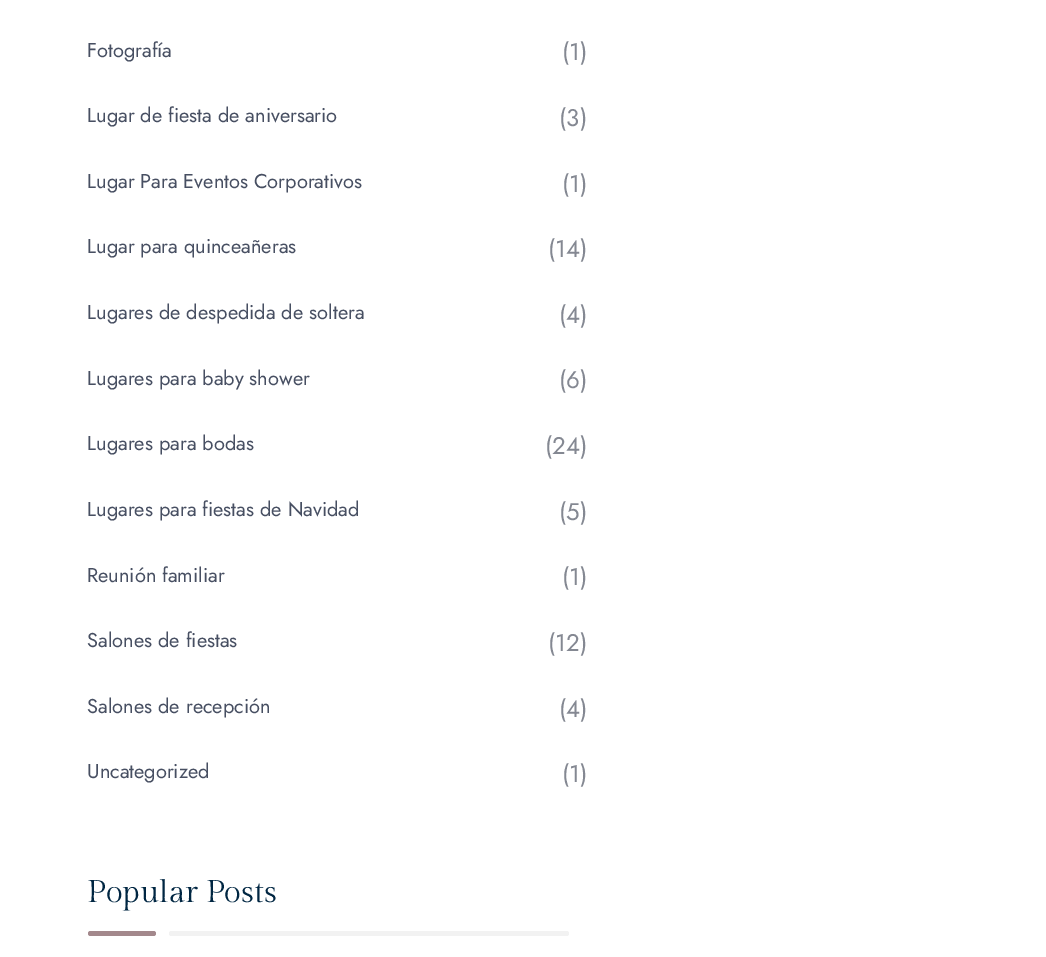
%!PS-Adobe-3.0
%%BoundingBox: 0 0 1046 957
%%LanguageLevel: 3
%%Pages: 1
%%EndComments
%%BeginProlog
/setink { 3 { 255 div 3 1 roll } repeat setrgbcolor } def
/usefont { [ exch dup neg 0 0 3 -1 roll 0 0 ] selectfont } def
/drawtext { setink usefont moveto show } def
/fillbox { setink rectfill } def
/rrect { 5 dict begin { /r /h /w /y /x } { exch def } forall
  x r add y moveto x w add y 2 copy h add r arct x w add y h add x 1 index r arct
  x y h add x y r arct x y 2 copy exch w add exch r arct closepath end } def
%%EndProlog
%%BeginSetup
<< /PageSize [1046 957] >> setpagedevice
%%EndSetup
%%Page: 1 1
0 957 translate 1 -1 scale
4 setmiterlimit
0 0 1046 957 255 255 255 fillbox
(Fotografía) 87 57 /Jost-Regular 20 71 79 98 drawtext
(\(1\)) 562 60 /Jost-Regular 24 132 136 146 drawtext
(Lugar de fiesta de aniversario) 87 122 /Jost-Regular 20 71 79 98 drawtext
(\(3\)) 559 126 /Jost-Regular 24 132 136 146 drawtext
(Lugar Para Eventos Corporativos) 87 188 /Jost-Regular 20 71 79 98 drawtext
(\(1\)) 562 192 /Jost-Regular 24 132 136 146 drawtext
(Lugar para quinceañeras) 87 253 /Jost-Regular 20 71 79 98 drawtext
(\(14\)) 548 257 /Jost-Regular 24 132 136 146 drawtext
(Lugares de despedida de soltera) 87 319 /Jost-Regular 20 71 79 98 drawtext
(\(4\)) 559 323 /Jost-Regular 24 132 136 146 drawtext
(Lugares para baby shower) 87 385 /Jost-Regular 20 71 79 98 drawtext
(\(6\)) 559 388 /Jost-Regular 24 132 136 146 drawtext
(Lugares para bodas) 87 450 /Jost-Regular 20 71 79 98 drawtext
(\(24\)) 545 454 /Jost-Regular 24 132 136 146 drawtext
(Lugares para fiestas de Navidad) 87 516 /Jost-Regular 20 71 79 98 drawtext
(\(5\)) 559 520 /Jost-Regular 24 132 136 146 drawtext
(Reunión familiar) 87 582 /Jost-Regular 20 71 79 98 drawtext
(\(1\)) 562 585 /Jost-Regular 24 132 136 146 drawtext
(Salones de fiestas) 87 647 /Jost-Regular 20 71 79 98 drawtext
(\(12\)) 548 651 /Jost-Regular 24 132 136 146 drawtext
(Salones de recepción) 87 713 /Jost-Regular 20 71 79 98 drawtext
(\(4\)) 559 717 /Jost-Regular 24 132 136 146 drawtext
(Uncategorized) 87 778 /Jost-Regular 20 71 79 98 drawtext
(\(1\)) 562 782 /Jost-Regular 24 132 136 146 drawtext
(Popular Posts) 87 902 /GildaDisplay-Regular 31.25 0 38 66 drawtext
163 136 140 setink
88 931 68 5 2.5 rrect fill
242 242 242 setink
169 931 400 5 2.5 rrect fill
showpage
%%EOF
